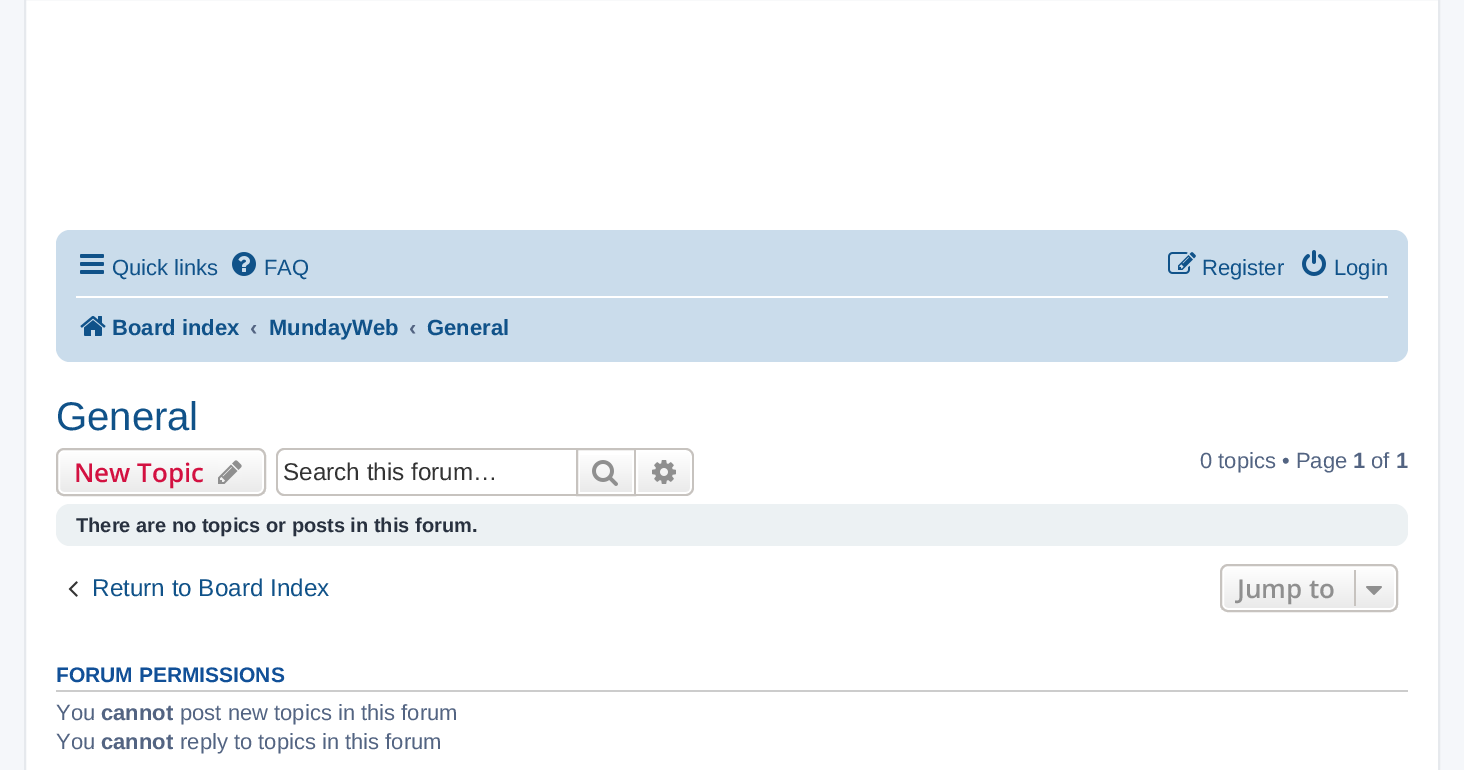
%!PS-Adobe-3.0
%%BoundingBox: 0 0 1464 770
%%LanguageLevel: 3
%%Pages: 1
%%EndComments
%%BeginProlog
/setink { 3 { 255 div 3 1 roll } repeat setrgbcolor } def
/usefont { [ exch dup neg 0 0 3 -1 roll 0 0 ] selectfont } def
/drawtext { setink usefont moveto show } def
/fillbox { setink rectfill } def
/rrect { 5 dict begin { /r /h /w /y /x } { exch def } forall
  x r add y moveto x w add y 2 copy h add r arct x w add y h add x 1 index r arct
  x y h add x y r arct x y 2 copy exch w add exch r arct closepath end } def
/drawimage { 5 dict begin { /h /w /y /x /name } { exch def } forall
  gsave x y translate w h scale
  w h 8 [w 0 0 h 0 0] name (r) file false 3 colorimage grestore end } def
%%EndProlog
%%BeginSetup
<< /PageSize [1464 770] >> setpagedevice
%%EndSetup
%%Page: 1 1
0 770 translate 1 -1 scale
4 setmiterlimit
0 0 1464 770 245 247 250 fillbox
255 255 255 setink
25 -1 moveto 1439 -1 lineto 1439 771 lineto 25 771 lineto closepath gsave fill grestore
230 233 237 setink
2 setlinewidth
stroke
202 220 235 setink
56 230 1352 132 14 rrect fill
(assets/img1.rgb) 80 254 24 20 drawimage
(Quick links) 112 275 /LiberationSans-Regular 22 16 82 137 drawtext
(assets/img2.rgb) 232 252 24 24 drawimage
(FAQ) 264 275 /LiberationSans-Regular 22 16 82 137 drawtext
(assets/img3.rgb) 1168 252 28 22 drawimage
(Register) 1202 275 /LiberationSans-Regular 22 16 82 137 drawtext
(assets/img4.rgb) 1302 250 24 26 drawimage
(Login) 1334 275 /LiberationSans-Regular 22 16 82 137 drawtext
76 296 1312 2 255 255 255 fillbox
(assets/img5.rgb) 80 316 26 20 drawimage
(Board index) 112 335 /LiberationSans-Bold 22 16 82 137 drawtext
(‹) 250 335 /LiberationSans-Bold 22 83 100 130 drawtext
(MundayWeb) 269 335 /LiberationSans-Bold 22 16 82 137 drawtext
(‹) 409 335 /LiberationSans-Bold 22 83 100 130 drawtext
(General) 427 335 /LiberationSans-Bold 22 16 82 137 drawtext
(General) 56 430 /LiberationSans-Regular 40 16 82 137 drawtext
gsave
56 448 210 48 8 rrect clip newpath
gsave 56 450 moveto 266 450 lineto 266 494 lineto 56 494 lineto closepath clip newpath
<< /ShadingType 2 /ColorSpace /DeviceRGB /Coords [161 450 161 494] /Extend [true true] /Function << /FunctionType 2 /Domain [0 1] /C0 [1 1 1] /C1 [0.914 0.914 0.914] /N 1 >> >> shfill grestore
grestore
255 255 255 setink
59 451 204 42 5 rrect stroke
199 195 191 setink
57 449 208 46 7 rrect stroke
(New Topic) 74 482 /OpenSans-SemiBold 26 211 17 65 drawtext
(assets/img6.rgb) 218 460 24 24 drawimage
199 195 191 setink
284 448 moveto 576 448 lineto 576 496 lineto 284 496 lineto 280 496 276 492 276 488 curveto 276 456 lineto 276 452 280 448 284 448 curveto closepath 284 450 moveto 576 450 lineto 576 494 lineto 284 494 lineto 281 494 278 491 278 488 curveto 278 456 lineto 278 453 281 450 284 450 curveto closepath eofill
(Search this forum…) 283 480 /LiberationSans-Regular 24.25 51 51 51 drawtext
gsave 580 455 moveto 632 455 lineto 632 492 lineto 580 492 lineto closepath clip newpath
<< /ShadingType 2 /ColorSpace /DeviceRGB /Coords [606 450 606 494] /Extend [true true] /Function << /FunctionType 2 /Domain [0 1] /C0 [1 1 1] /C1 [0.914 0.914 0.914] /N 1 >> >> shfill grestore
199 195 191 setink
577 449 58 46 rectstroke
(assets/img7.rgb) 592 460 26 26 drawimage
gsave 637 451 moveto 686 451 lineto 689 451 691 453 691 456 curveto 691 488 lineto 691 491 689 493 686 493 curveto 637 493 lineto closepath clip newpath
<< /ShadingType 2 /ColorSpace /DeviceRGB /Coords [664 450 664 494] /Extend [true true] /Function << /FunctionType 2 /Domain [0 1] /C0 [1 1 1] /C1 [0.914 0.914 0.914] /N 1 >> >> shfill grestore
255 255 255 setink
637 451 moveto 686 451 lineto 689 451 691 453 691 456 curveto 691 488 lineto 691 491 689 493 686 493 curveto 637 493 lineto closepath stroke
199 195 191 setink
636 448 moveto 686 448 lineto 690 448 694 452 694 456 curveto 694 488 lineto 694 492 690 496 686 496 curveto 636 496 lineto closepath 636 450 moveto 686 450 lineto 689 450 692 453 692 456 curveto 692 488 lineto 692 491 689 494 686 494 curveto 636 494 lineto closepath eofill
(assets/img8.rgb) 652 460 24 24 drawimage
(0 topics • Page) 1200 468 /LiberationSans-Regular 22 83 100 130 drawtext
(1) 1353 468 /LiberationSans-Bold 22 83 100 130 drawtext
(of) 1371 468 /LiberationSans-Regular 22 83 100 130 drawtext
(1) 1396 468 /LiberationSans-Bold 22 83 100 130 drawtext
236 241 243 setink
56 504 1352 42 14 rrect fill
(There are no topics or posts in this forum.) 76 532 /LiberationSans-Bold 20 40 49 63 drawtext
(assets/img9.rgb) 68 581 10 16 drawimage
(Return to Board Index) 92 596 /LiberationSans-Regular 24.25 16 82 137 drawtext
gsave
1220 564 178 48 8 rrect clip newpath
gsave 1220 566 moveto 1398 566 lineto 1398 610 lineto 1220 610 lineto closepath clip newpath
<< /ShadingType 2 /ColorSpace /DeviceRGB /Coords [1309 566 1309 610] /Extend [true true] /Function << /FunctionType 2 /Domain [0 1] /C0 [1 1 1] /C1 [0.914 0.914 0.914] /N 1 >> >> shfill grestore
grestore
255 255 255 setink
1223 567 172 42 5 rrect stroke
199 195 191 setink
1221 565 176 46 7 rrect stroke
(Jump to) 1237 598 /OpenSans-SemiBold 26 143 143 143 drawtext
1354 570 2 36 199 195 191 fillbox
(assets/img10.rgb) 1366 586 16 9 drawimage
56 690 1352 2 204 204 204 fillbox
(FORUM PERMISSIONS) 56 682 /LiberationSans-Bold 21 17 80 152 drawtext
(You) 56 720 /LiberationSans-Regular 22 83 100 130 drawtext
(cannot) 101 720 /LiberationSans-Bold 22 83 100 130 drawtext
(post new topics in this forum) 180 720 /LiberationSans-Regular 22 83 100 130 drawtext
(You) 56 749 /LiberationSans-Regular 22 83 100 130 drawtext
(cannot) 101 749 /LiberationSans-Bold 22 83 100 130 drawtext
(reply to topics in this forum) 180 749 /LiberationSans-Regular 22 83 100 130 drawtext
showpage
%%EOF
